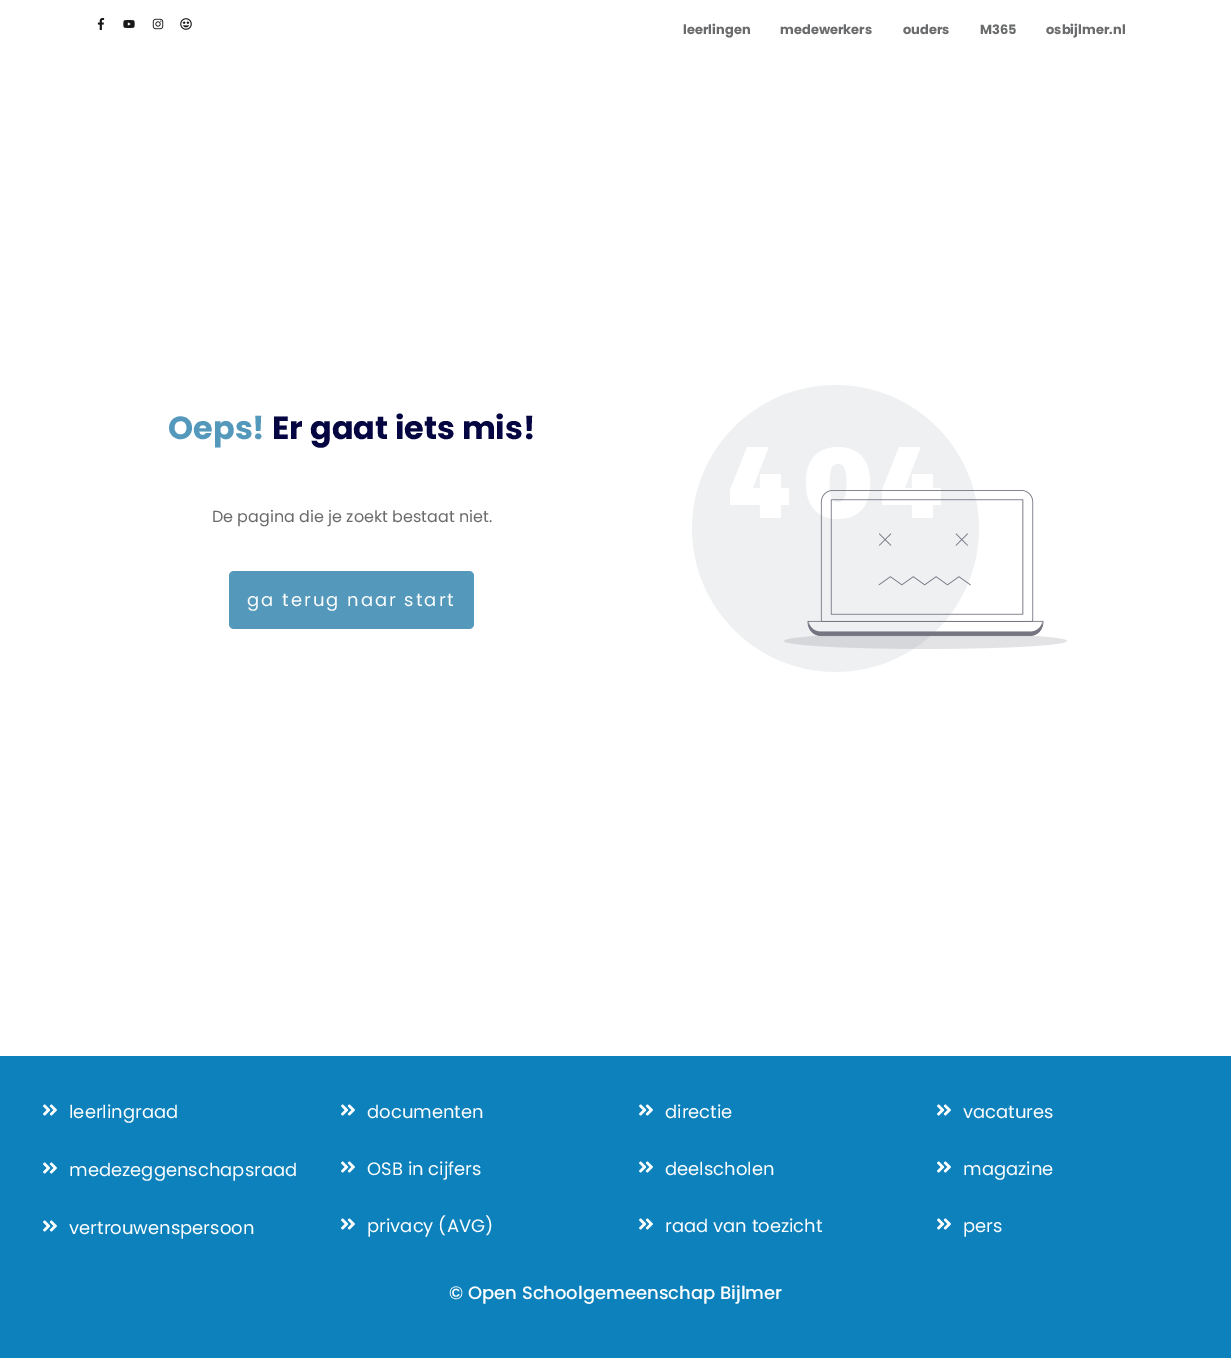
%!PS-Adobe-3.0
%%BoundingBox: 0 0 1231 1358
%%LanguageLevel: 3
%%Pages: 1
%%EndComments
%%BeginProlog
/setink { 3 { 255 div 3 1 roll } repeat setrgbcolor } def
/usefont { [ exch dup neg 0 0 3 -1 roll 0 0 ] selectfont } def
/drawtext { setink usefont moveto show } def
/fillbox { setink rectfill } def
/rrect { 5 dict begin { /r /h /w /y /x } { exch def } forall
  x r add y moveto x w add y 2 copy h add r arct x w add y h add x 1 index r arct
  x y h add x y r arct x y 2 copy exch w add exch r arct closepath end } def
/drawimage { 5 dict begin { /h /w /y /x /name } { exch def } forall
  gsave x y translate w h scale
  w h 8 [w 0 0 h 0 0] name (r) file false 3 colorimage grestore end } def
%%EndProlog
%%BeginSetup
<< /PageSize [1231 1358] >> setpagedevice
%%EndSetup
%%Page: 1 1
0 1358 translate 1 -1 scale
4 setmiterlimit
0 0 1231 1358 255 255 255 fillbox
(assets/img1.rgb) 97 18 8 12 drawimage
(assets/img2.rgb) 123 20 12 8 drawimage
(assets/img3.rgb) 152 18 12 12 drawimage
(assets/img4.rgb) 180 18 12 12 drawimage
(leerlingen) 683 34 /Poppins-Bold 13 106 107 108 drawtext
(medewerkers) 780 34 /Poppins-Bold 13 106 107 108 drawtext
(ouders) 903 34 /Poppins-Bold 13 106 107 108 drawtext
(M365) 980 34 /Poppins-Bold 13 106 107 108 drawtext
(osbijlmer.nl) 1046 34 /Poppins-Bold 13 106 107 108 drawtext
(Oeps!) 168 439 /Poppins-Bold 32 84 152 187 drawtext
(Er gaat iets mis!) 272 439 /Poppins-Bold 32 5 5 65 drawtext
(De pagina die je zoekt bestaat niet.) 212 522 /Poppins-Regular 16 106 107 108 drawtext
84 152 187 setink
229 571 245 58 5 rrect fill
/Poppins-Regular 18 usefont
255 255 255 setink
247 606 moveto 2 0 (ga terug naar start) ashow
(assets/img5.rgb) 692 385 375 287 drawimage
0 1056 1231 302 12 129 188 fillbox
(assets/img6.rgb) 43 1104 14 12 drawimage
(leerlingraad) 69 1118 /Poppins-Regular 18 255 255 255 drawtext
(assets/img6.rgb) 43 1162 14 12 drawimage
(medezeggenschapsraad) 69 1176 /Poppins-Regular 18 255 255 255 drawtext
(assets/img6.rgb) 43 1220 14 12 drawimage
(vertrouwenspersoon) 69 1234 /Poppins-Regular 18 255 255 255 drawtext
(assets/img6.rgb) 341 1104 14 12 drawimage
(documenten) 367 1118 /Poppins-Regular 18 255 255 255 drawtext
(assets/img6.rgb) 341 1161 14 12 drawimage
(OSB in cijfers) 367 1175 /Poppins-Regular 18 255 255 255 drawtext
(assets/img6.rgb) 341 1218 14 12 drawimage
(privacy \(AVG\)) 367 1232 /Poppins-Regular 18 255 255 255 drawtext
(assets/img6.rgb) 639 1104 14 12 drawimage
(directie) 665 1118 /Poppins-Regular 18 255 255 255 drawtext
(assets/img6.rgb) 639 1161 14 12 drawimage
(deelscholen) 665 1175 /Poppins-Regular 18 255 255 255 drawtext
(assets/img6.rgb) 639 1218 14 12 drawimage
(raad van toezicht) 665 1232 /Poppins-Regular 18 255 255 255 drawtext
(assets/img6.rgb) 937 1104 14 12 drawimage
(vacatures) 963 1118 /Poppins-Regular 18 255 255 255 drawtext
(assets/img6.rgb) 937 1161 14 12 drawimage
(magazine) 963 1175 /Poppins-Regular 18 255 255 255 drawtext
(assets/img6.rgb) 937 1218 14 12 drawimage
(pers) 963 1232 /Poppins-Regular 18 255 255 255 drawtext
(© Open Schoolgemeenschap Bijlmer) 449 1299 /Poppins-Medium 18 255 255 255 drawtext
showpage
%%EOF
